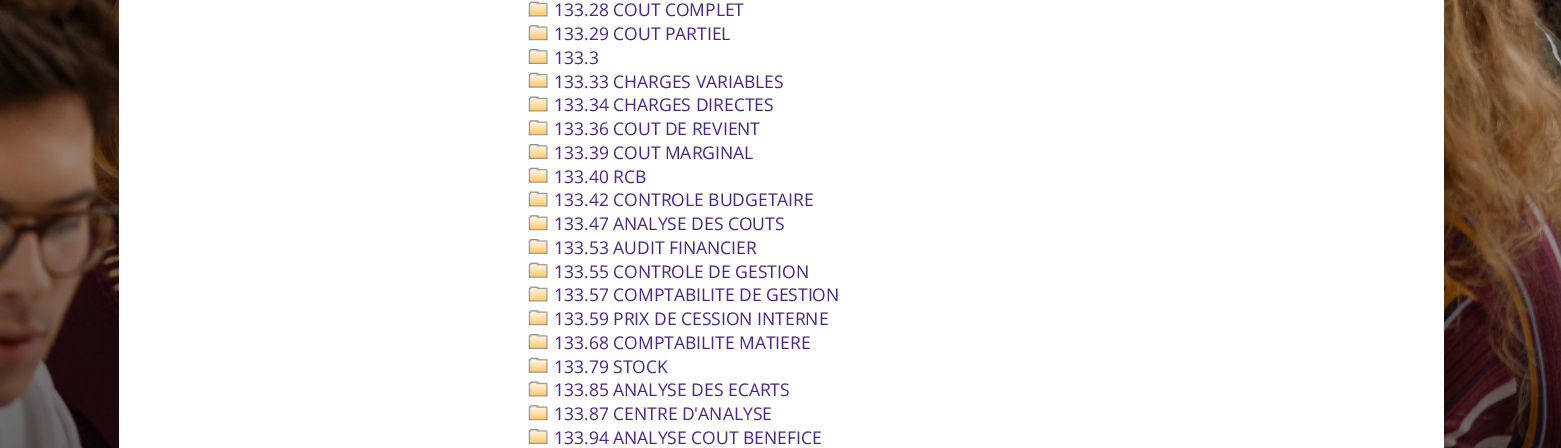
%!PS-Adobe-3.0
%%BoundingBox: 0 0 1561 448
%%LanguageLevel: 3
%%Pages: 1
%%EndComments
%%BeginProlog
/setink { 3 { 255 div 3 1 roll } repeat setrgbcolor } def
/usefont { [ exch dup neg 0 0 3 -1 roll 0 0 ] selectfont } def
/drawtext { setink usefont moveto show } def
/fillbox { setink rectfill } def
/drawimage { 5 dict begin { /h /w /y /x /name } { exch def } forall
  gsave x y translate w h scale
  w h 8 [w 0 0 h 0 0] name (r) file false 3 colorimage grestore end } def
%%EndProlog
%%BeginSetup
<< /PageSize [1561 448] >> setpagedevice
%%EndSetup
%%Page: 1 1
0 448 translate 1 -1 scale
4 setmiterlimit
0 0 1561 448 255 255 255 fillbox
(assets/img1.rgb) 0 0 1561 448 drawimage
119 0 1325 448 255 255 255 fillbox
(assets/img2.rgb) 528 1 20 16 drawimage
(133.28 COUT COMPLET) 554 16 /OpenSans-Regular 17.5 77 38 127 drawtext
(assets/img3.rgb) 528 25 20 16 drawimage
(133.29 COUT PARTIEL) 554 40 /OpenSans-Regular 17.5 77 38 127 drawtext
(assets/img4.rgb) 528 49 20 15 drawimage
(133.3) 554 64 /OpenSans-Regular 17.5 77 38 127 drawtext
(assets/img5.rgb) 528 72 20 16 drawimage
(133.33 CHARGES VARIABLES) 554 88 /OpenSans-Regular 17.5 77 38 127 drawtext
(assets/img2.rgb) 528 96 20 16 drawimage
(133.34 CHARGES DIRECTES) 554 111 /OpenSans-Regular 17.5 77 38 127 drawtext
(assets/img3.rgb) 528 120 20 16 drawimage
(133.36 COUT DE REVIENT) 554 135 /OpenSans-Regular 17.5 77 38 127 drawtext
(assets/img4.rgb) 528 144 20 15 drawimage
(133.39 COUT MARGINAL) 554 159 /OpenSans-Regular 17.5 77 38 127 drawtext
(assets/img5.rgb) 528 167 20 16 drawimage
(133.40 RCB) 554 183 /OpenSans-Regular 17.5 77 38 127 drawtext
(assets/img2.rgb) 528 191 20 16 drawimage
(133.42 CONTROLE BUDGETAIRE) 554 206 /OpenSans-Regular 17.5 77 38 127 drawtext
(assets/img3.rgb) 528 215 20 16 drawimage
(133.47 ANALYSE DES COUTS) 554 230 /OpenSans-Regular 17.5 77 38 127 drawtext
(assets/img4.rgb) 528 239 20 15 drawimage
(133.53 AUDIT FINANCIER) 554 254 /OpenSans-Regular 17.5 77 38 127 drawtext
(assets/img5.rgb) 528 262 20 16 drawimage
(133.55 CONTROLE DE GESTION) 554 278 /OpenSans-Regular 17.5 77 38 127 drawtext
(assets/img2.rgb) 528 286 20 16 drawimage
(133.57 COMPTABILITE DE GESTION) 554 301 /OpenSans-Regular 17.5 77 38 127 drawtext
(assets/img3.rgb) 528 310 20 16 drawimage
(133.59 PRIX DE CESSION INTERNE) 554 325 /OpenSans-Regular 17.5 77 38 127 drawtext
(assets/img4.rgb) 528 334 20 15 drawimage
(133.68 COMPTABILITE MATIERE) 554 349 /OpenSans-Regular 17.5 77 38 127 drawtext
(assets/img5.rgb) 528 357 20 16 drawimage
(133.79 STOCK) 554 373 /OpenSans-Regular 17.5 77 38 127 drawtext
(assets/img2.rgb) 528 381 20 16 drawimage
(133.85 ANALYSE DES ECARTS) 554 396 /OpenSans-Regular 17.5 77 38 127 drawtext
(assets/img3.rgb) 528 405 20 16 drawimage
(133.87 CENTRE D'ANALYSE) 554 420 /OpenSans-Regular 17.5 77 38 127 drawtext
(assets/img4.rgb) 528 429 20 15 drawimage
(133.94 ANALYSE COUT BENEFICE) 554 444 /OpenSans-Regular 17.5 77 38 127 drawtext
showpage
%%EOF
